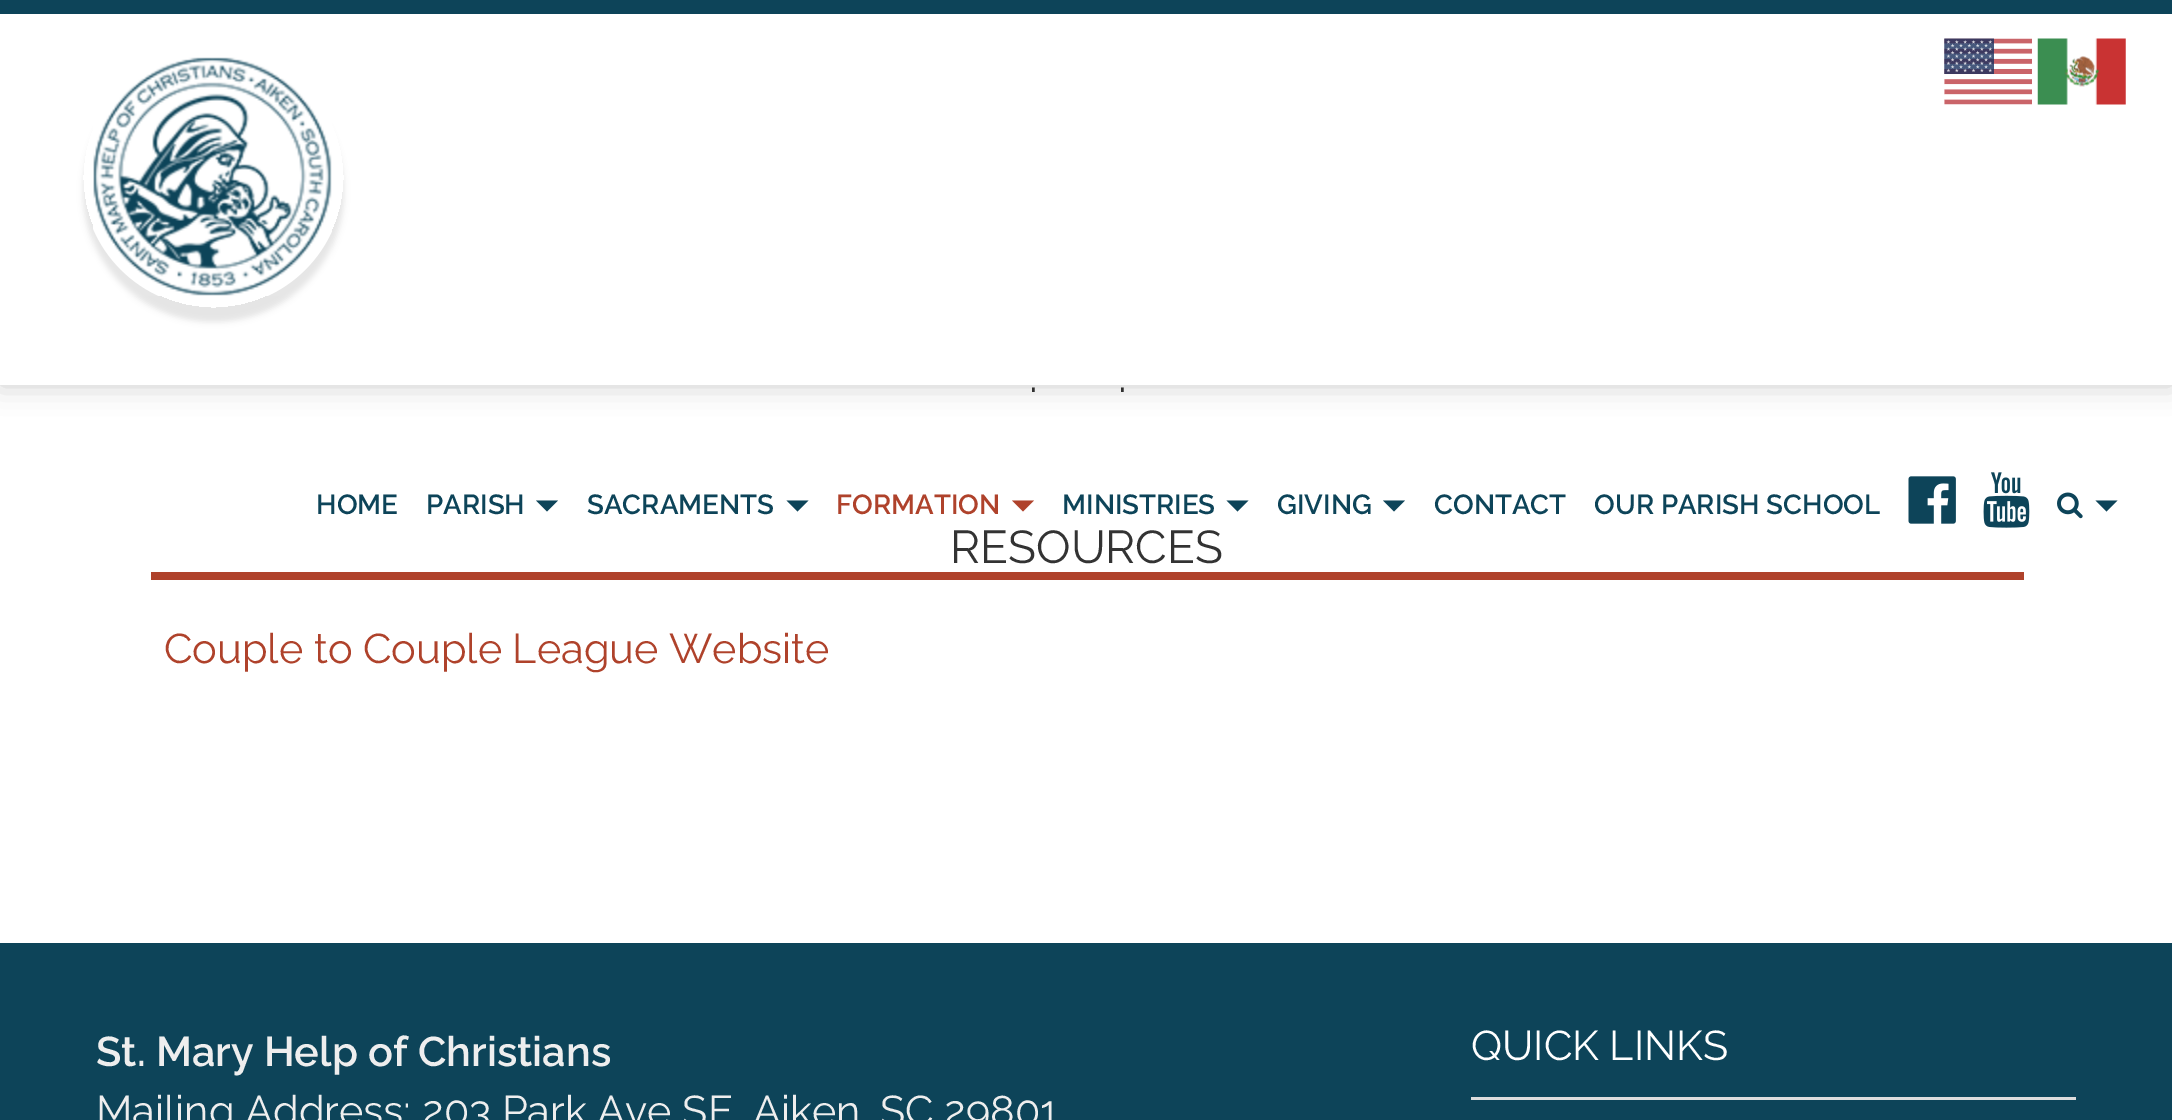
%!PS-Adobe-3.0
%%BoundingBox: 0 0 2172 1120
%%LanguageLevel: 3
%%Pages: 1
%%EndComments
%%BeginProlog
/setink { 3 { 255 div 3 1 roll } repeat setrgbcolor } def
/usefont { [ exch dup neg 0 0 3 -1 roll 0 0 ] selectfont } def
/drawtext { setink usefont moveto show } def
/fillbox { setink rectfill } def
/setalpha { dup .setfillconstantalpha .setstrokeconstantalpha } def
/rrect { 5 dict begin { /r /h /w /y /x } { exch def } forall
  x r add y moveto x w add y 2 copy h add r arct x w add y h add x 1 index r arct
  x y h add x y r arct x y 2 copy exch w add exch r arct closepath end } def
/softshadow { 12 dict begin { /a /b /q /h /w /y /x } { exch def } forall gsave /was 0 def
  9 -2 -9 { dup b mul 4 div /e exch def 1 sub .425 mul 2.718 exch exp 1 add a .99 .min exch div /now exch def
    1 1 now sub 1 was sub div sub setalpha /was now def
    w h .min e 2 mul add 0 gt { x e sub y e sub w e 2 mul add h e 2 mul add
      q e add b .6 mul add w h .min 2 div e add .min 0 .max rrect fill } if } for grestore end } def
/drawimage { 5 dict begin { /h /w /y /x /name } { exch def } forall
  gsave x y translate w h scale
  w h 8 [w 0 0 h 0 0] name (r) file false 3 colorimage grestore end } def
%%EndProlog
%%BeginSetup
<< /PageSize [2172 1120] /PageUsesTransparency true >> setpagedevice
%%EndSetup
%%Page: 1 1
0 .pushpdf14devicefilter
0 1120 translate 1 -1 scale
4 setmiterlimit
0 0 2172 1120 255 255 255 fillbox
(.) 1029 392 /Raleway-Regular 46 51 51 51 drawtext
(.) 1118 392 /Raleway-Regular 46 51 51 51 drawtext
151 572 1873 8 175 66 43 fillbox
(RESOURCES) 950 563 /Raleway-Regular 46 51 51 51 drawtext
(Couple to Couple League Website) 164 663 /Raleway-Regular 41.5 175 66 43 drawtext
0 0 0 setink
0 0 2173 385 0 14 0.2 softshadow
0 14 2172 371 255 255 255 fillbox
0 0 2172 14 13 68 89 fillbox
(assets/img1.rgb) 1944 38 88 67 drawimage
(assets/img2.rgb) 2037 38 89 67 drawimage
gsave
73 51 moveto 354 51 lineto 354 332 lineto 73 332 lineto closepath 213.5 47 moveto 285.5 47 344 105.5 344 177.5 curveto 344 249.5 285.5 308 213.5 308 curveto 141.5 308 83 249.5 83 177.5 curveto 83 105.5 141.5 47 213.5 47 curveto closepath eoclip newpath
0 0 0 setink
83 61 261 261 130.5 3 0.1 softshadow
grestore
(assets/img3.rgb) 93 57 239 239 drawimage
(HOME) 316 514 /Raleway-SemiBold 27.6 13 68 89 drawtext
(PARISH) 426 514 /Raleway-SemiBold 27.6 13 68 89 drawtext
536 500.5 moveto 558 500.5 lineto 547 511.5 lineto closepath fill
(SACRAMENTS) 587 514 /Raleway-SemiBold 27.6 13 68 89 drawtext
786.5 500.5 moveto 808.5 500.5 lineto 797.5 511.5 lineto closepath fill
(FORMATION) 836 514 /Raleway-SemiBold 27.6 175 66 43 drawtext
1012 500.5 moveto 1034 500.5 lineto 1023 511.5 lineto closepath fill
(MINISTRIES) 1062 514 /Raleway-SemiBold 27.6 13 68 89 drawtext
1226.5 500.5 moveto 1248.5 500.5 lineto 1237.5 511.5 lineto closepath fill
(GIVING) 1277 514 /Raleway-SemiBold 27.6 13 68 89 drawtext
1383 500.5 moveto 1405 500.5 lineto 1394 511.5 lineto closepath fill
(CONTACT) 1434 514 /Raleway-SemiBold 27.6 13 68 89 drawtext
(OUR PARISH SCHOOL) 1594 514 /Raleway-SemiBold 27.6 13 68 89 drawtext
(assets/img4.rgb) 1908 476 48 48 drawimage
(assets/img5.rgb) 1983 472 47 56 drawimage
(assets/img6.rgb) 2057 492 26 27 drawimage
2095.5 500.5 moveto 2117.5 500.5 lineto 2106.5 511.5 lineto closepath fill
0 943 2172 177 13 68 89 fillbox
(St. Mary Help of Christians) 96 1066 /Raleway-SemiBold 41.5 238 238 238 drawtext
(Mailing Address: 203 Park Ave SE, Aiken, SC 29801) 96 1125 /Raleway-Regular 41.5 238 238 238 drawtext
1471 1097 605 3 221 221 221 fillbox
(QUICK LINKS) 1471 1060 /Raleway-Regular 41.5 255 255 255 drawtext
.poppdf14devicefilter showpage
%%EOF
